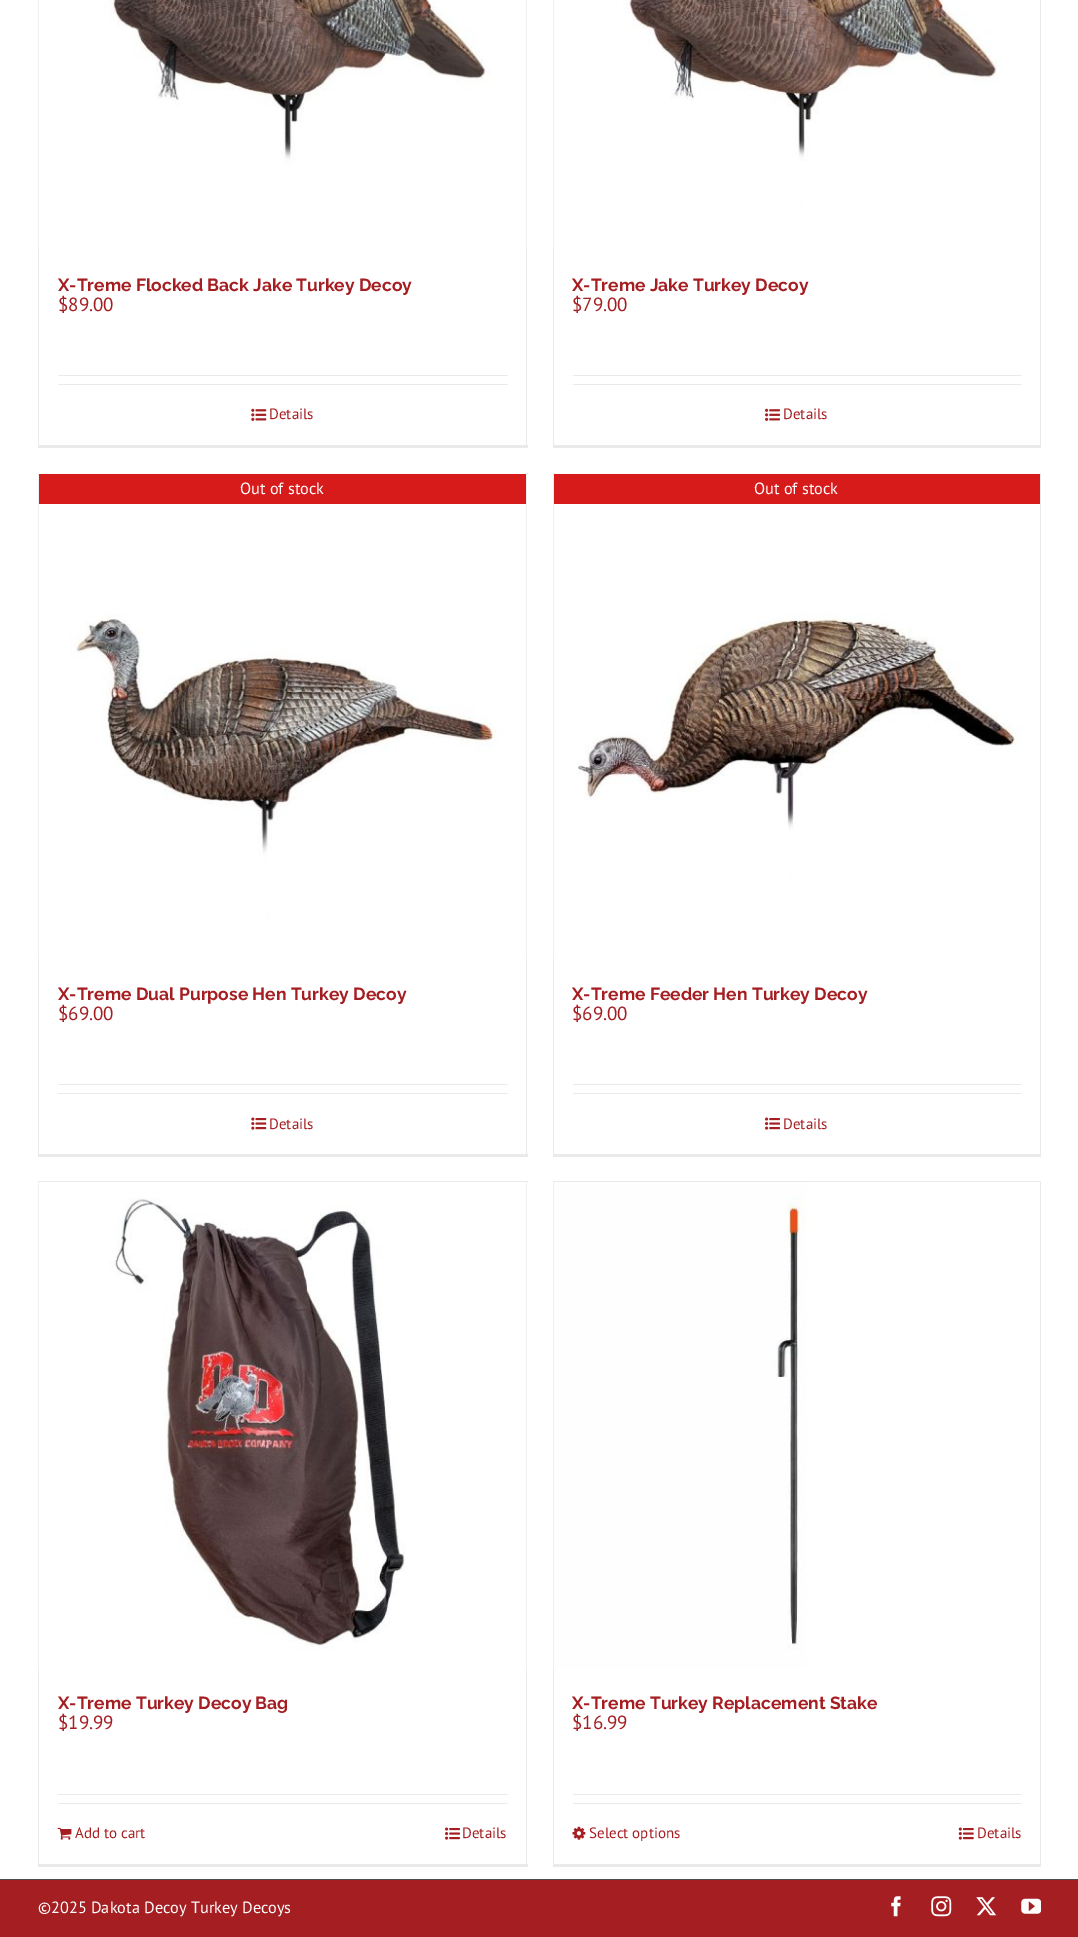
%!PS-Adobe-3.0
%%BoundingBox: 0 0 1078 1937
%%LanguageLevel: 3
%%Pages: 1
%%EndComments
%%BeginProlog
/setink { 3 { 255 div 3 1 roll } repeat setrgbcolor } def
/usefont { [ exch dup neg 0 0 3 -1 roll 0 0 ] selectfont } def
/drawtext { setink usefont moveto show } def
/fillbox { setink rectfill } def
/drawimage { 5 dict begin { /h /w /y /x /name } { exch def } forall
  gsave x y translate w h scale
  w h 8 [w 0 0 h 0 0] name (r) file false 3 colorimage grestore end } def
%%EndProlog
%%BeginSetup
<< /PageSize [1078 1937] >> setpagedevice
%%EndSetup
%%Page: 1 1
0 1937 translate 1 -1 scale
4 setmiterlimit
0 0 1078 1937 255 255 255 fillbox
526 0 1 448 235 234 234 fillbox
38 445 490 3 235 234 234 fillbox
38 0 1 448 235 234 234 fillbox
(assets/img1.rgb) 38 0 489 250 drawimage
(X-Treme Flocked Back Jake Turkey Decoy) 58 291 /Raleway-Thin 17.5 165 30 34 drawtext
($89.00) 58 311 /PTSans-Regular 19 165 30 34 drawtext
58 375 450 1 235 234 234 fillbox
58 384 450 1 235 234 234 fillbox
(assets/img2.rgb) 251 408 16 13 drawimage
(Details) 269 419 /PTSans-Regular 15 165 30 34 drawtext
1040 0 1 448 235 234 234 fillbox
553 445 488 3 235 234 234 fillbox
553 0 1 448 235 234 234 fillbox
(assets/img3.rgb) 553 0 447 250 drawimage
(X-Treme Jake Turkey Decoy) 572 291 /Raleway-Thin 17.5 165 30 34 drawtext
($79.00) 572 311 /PTSans-Regular 19 165 30 34 drawtext
573 375 448 1 235 234 234 fillbox
573 384 448 1 235 234 234 fillbox
(assets/img4.rgb) 765 408 15 13 drawimage
(Details) 783 419 /PTSans-Regular 15 165 30 34 drawtext
38 473 490 1 235 234 234 fillbox
526 473 1 683 235 234 234 fillbox
38 1154 490 3 235 234 234 fillbox
38 473 1 683 235 234 234 fillbox
(assets/img5.rgb) 38 473 489 486 drawimage
39 474 487 30 215 26 26 fillbox
(Out of stock) 240 494 /PTSans-Regular 16.25 255 255 255 drawtext
(X-Treme Dual Purpose Hen Turkey Decoy) 58 1000 /Raleway-Thin 17.5 165 30 34 drawtext
($69.00) 58 1020 /PTSans-Regular 19 165 30 34 drawtext
58 1084 450 1 235 234 234 fillbox
58 1093 450 1 235 234 234 fillbox
(assets/img6.rgb) 251 1117 16 13 drawimage
(Details) 269 1129 /PTSans-Regular 15 165 30 34 drawtext
1040 473 1 683 235 234 234 fillbox
553 1154 488 3 235 234 234 fillbox
553 473 1 683 235 234 234 fillbox
(assets/img7.rgb) 553 473 487 486 drawimage
554 474 486 30 215 26 26 fillbox
(Out of stock) 754 494 /PTSans-Regular 16.25 255 255 255 drawtext
(X-Treme Feeder Hen Turkey Decoy) 572 1000 /Raleway-Thin 17.5 165 30 34 drawtext
($69.00) 572 1020 /PTSans-Regular 19 165 30 34 drawtext
573 1084 448 1 235 234 234 fillbox
573 1093 448 1 235 234 234 fillbox
(assets/img8.rgb) 765 1117 15 13 drawimage
(Details) 783 1129 /PTSans-Regular 15 165 30 34 drawtext
38 1181 490 1 235 234 234 fillbox
526 1181 1 685 235 234 234 fillbox
38 1864 490 3 235 234 234 fillbox
38 1181 1 685 235 234 234 fillbox
(assets/img9.rgb) 38 1182 489 487 drawimage
(X-Treme Turkey Decoy Bag) 58 1709 /Raleway-Thin 17.5 165 30 34 drawtext
($19.99) 58 1729 /PTSans-Regular 19 165 30 34 drawtext
58 1794 450 1 235 234 234 fillbox
58 1803 450 1 235 234 234 fillbox
(assets/img10.rgb) 57 1827 15 13 drawimage
(Add to cart) 75 1838 /PTSans-Regular 15 165 30 34 drawtext
(assets/img8.rgb) 445 1827 15 13 drawimage
(Details) 462 1838 /PTSans-Regular 15 165 30 34 drawtext
553 1181 488 1 235 234 234 fillbox
1040 1181 1 685 235 234 234 fillbox
553 1864 488 3 235 234 234 fillbox
553 1181 1 685 235 234 234 fillbox
(assets/img11.rgb) 553 1182 254 487 drawimage
(X-Treme Turkey Replacement Stake) 572 1709 /Raleway-Thin 17.5 165 30 34 drawtext
($16.99) 572 1729 /PTSans-Regular 19 165 30 34 drawtext
573 1794 448 1 235 234 234 fillbox
573 1803 448 1 235 234 234 fillbox
(assets/img12.rgb) 572 1826 14 14 drawimage
(Select options) 589 1838 /PTSans-Regular 15 165 30 34 drawtext
(assets/img13.rgb) 958 1827 16 13 drawimage
(Details) 977 1838 /PTSans-Regular 15 165 30 34 drawtext
0 1880 1078 57 165 30 34 fillbox
0 1879 1078 1 75 76 77 fillbox
(©2025 Dakota Decoy Turkey Decoys) 38 1913 /PTSans-Regular 16.25 255 255 255 drawtext
(assets/img14.rgb) 891 1896 10 21 drawimage
(assets/img15.rgb) 931 1896 21 21 drawimage
(assets/img16.rgb) 976 1897 21 19 drawimage
(assets/img17.rgb) 1021 1898 20 16 drawimage
showpage
%%EOF
